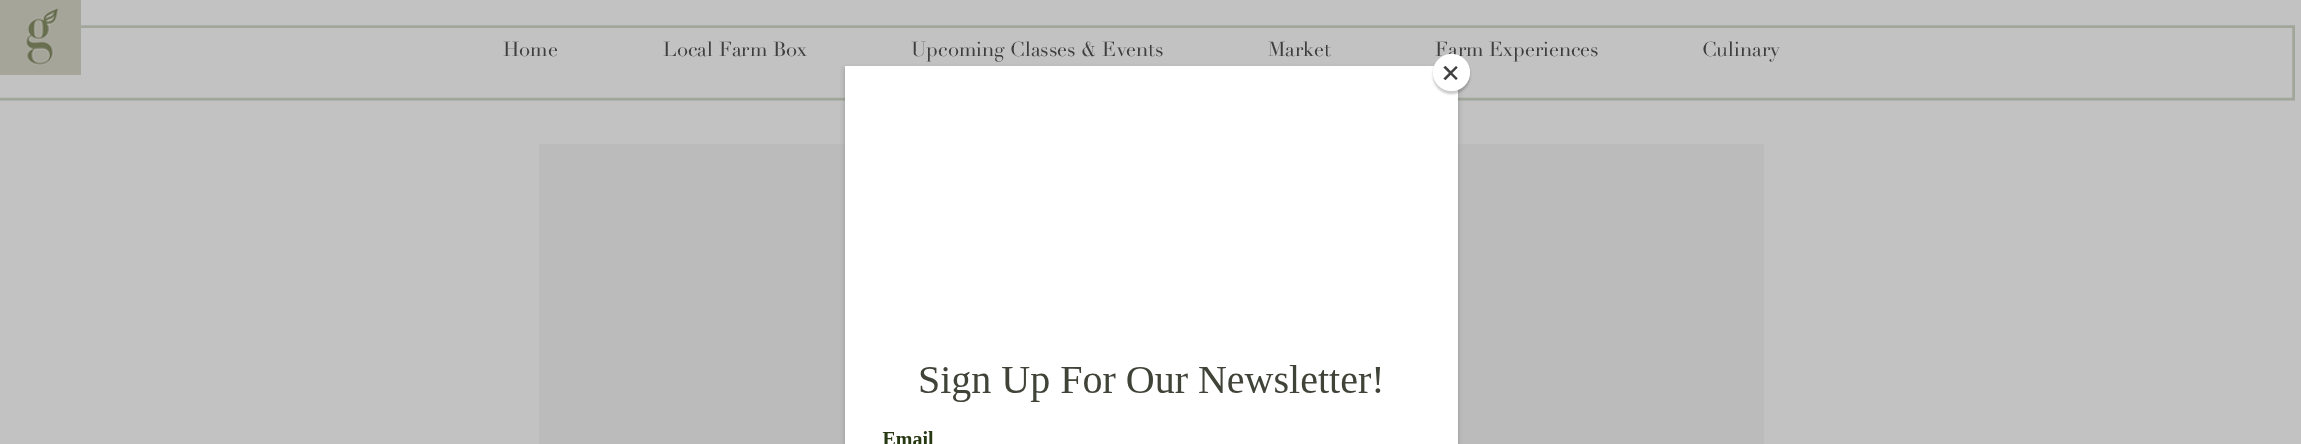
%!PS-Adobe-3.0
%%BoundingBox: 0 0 2301 444
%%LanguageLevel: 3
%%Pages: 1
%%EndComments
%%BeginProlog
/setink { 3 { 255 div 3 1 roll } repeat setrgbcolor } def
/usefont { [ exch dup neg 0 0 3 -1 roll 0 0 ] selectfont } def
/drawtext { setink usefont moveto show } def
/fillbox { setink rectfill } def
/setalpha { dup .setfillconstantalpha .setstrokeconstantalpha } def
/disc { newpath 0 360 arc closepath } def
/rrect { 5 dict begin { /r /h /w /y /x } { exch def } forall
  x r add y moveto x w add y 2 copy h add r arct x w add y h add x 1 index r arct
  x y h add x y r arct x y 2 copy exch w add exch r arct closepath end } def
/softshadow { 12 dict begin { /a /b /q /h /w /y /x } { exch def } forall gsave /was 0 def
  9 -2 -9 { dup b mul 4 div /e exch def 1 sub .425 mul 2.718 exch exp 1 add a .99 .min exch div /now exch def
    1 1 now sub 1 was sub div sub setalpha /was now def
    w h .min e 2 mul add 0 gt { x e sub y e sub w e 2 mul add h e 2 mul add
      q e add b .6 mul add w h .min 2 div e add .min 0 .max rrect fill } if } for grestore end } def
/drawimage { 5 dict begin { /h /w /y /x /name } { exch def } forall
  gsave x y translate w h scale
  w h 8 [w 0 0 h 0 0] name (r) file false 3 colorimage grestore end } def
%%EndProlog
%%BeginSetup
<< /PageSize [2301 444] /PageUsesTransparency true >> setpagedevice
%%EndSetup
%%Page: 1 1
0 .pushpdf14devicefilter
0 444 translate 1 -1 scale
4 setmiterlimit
0 0 2301 444 194 194 194 fillbox
160 166 154 setink
2.5 setlinewidth
2293.5 26.5 moveto 2293.5 99 lineto -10 99 lineto -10 26.5 lineto closepath stroke
(assets/img1.rgb) 0 0 81 75 drawimage
(Home) 503 56 /Didot-Regular 20 62 62 62 drawtext
(Local Farm Box) 663 56 /Didot-Regular 20 62 62 62 drawtext
(Upcoming Classes & Events) 911 56 /Didot-Regular 20 62 62 62 drawtext
(Market) 1268 56 /Didot-Regular 20 62 62 62 drawtext
(Farm Experiences) 1435 56 /Didot-Regular 20 62 62 62 drawtext
(Culinary) 1702 56 /Didot-Regular 20 62 62 62 drawtext
539 144 1225 300 187 187 187 fillbox
0 0 0 setink
845 69 613 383 0 2.5 0.2 softshadow
(assets/img2.rgb) 845 66 613 378 drawimage
1433 56 37 38 18.5 1 0.2 softshadow
255 255 255 setink
1451.5 72.5 18.5 disc fill
65 65 65 setink
1456 66 moveto 1457.5 67.5 lineto 1445.5 80 lineto 1443.5 78.5 lineto closepath fill
1443.5 67.5 moveto 1445.5 66 lineto 1457.5 78.5 lineto 1456 80 lineto closepath fill
.poppdf14devicefilter showpage
%%EOF
